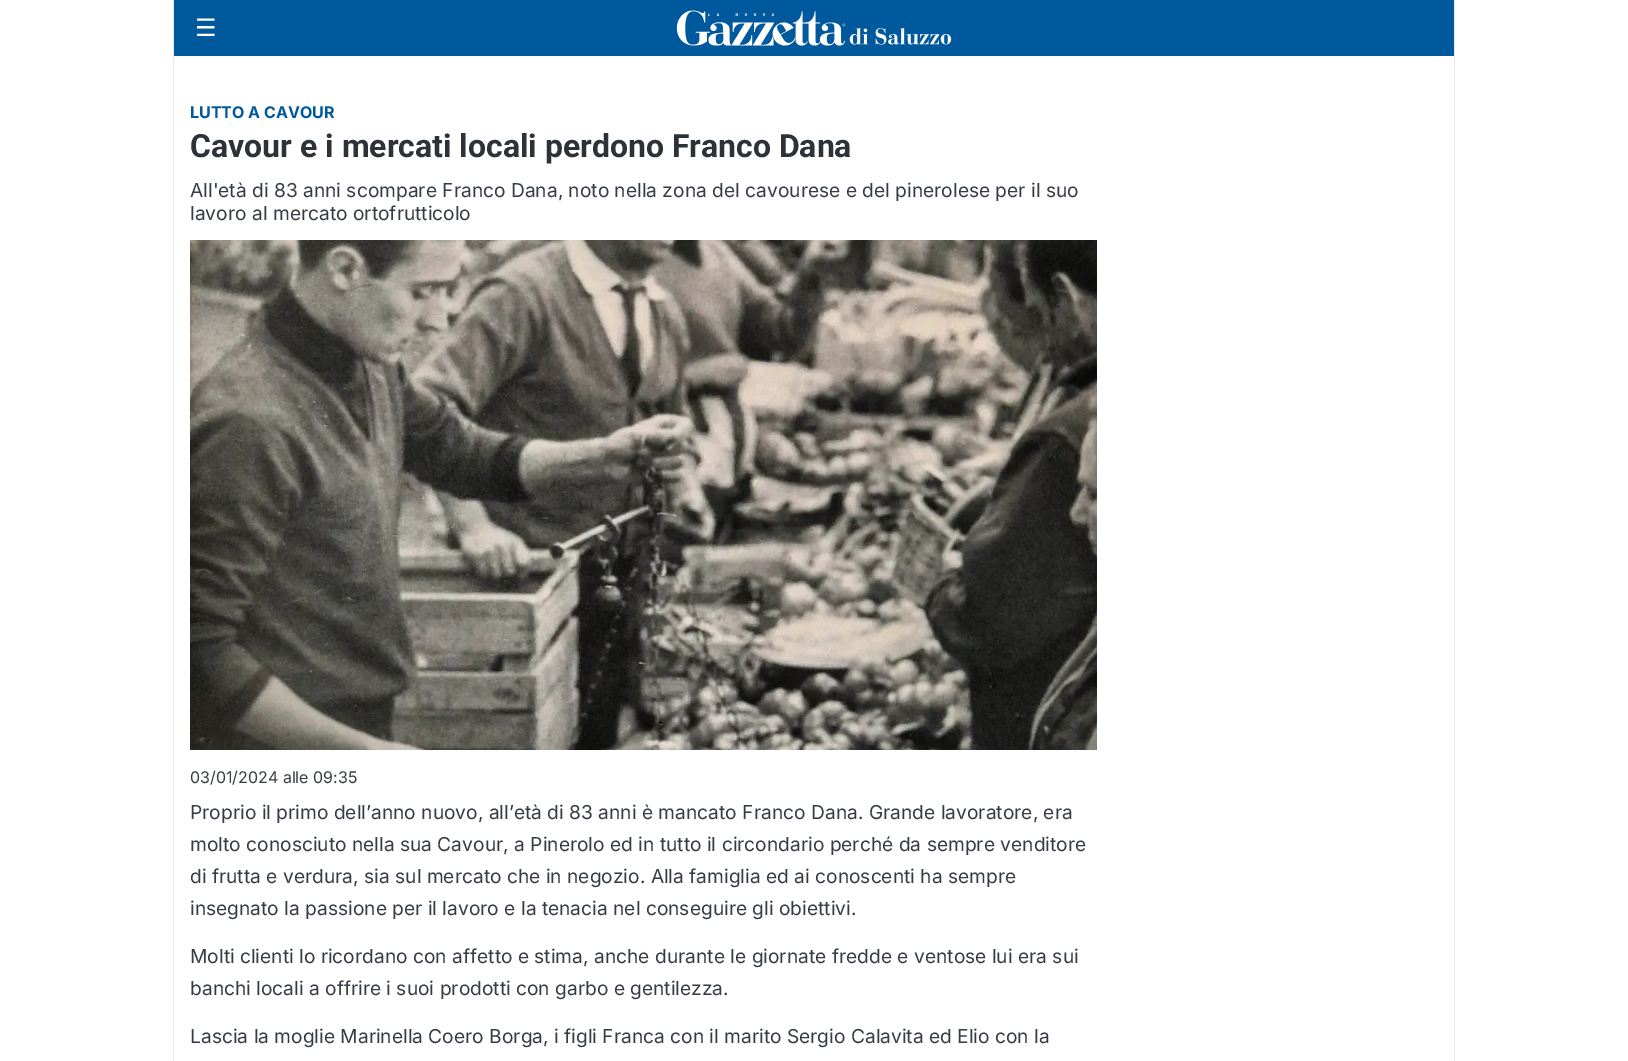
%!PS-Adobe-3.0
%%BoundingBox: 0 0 1628 1061
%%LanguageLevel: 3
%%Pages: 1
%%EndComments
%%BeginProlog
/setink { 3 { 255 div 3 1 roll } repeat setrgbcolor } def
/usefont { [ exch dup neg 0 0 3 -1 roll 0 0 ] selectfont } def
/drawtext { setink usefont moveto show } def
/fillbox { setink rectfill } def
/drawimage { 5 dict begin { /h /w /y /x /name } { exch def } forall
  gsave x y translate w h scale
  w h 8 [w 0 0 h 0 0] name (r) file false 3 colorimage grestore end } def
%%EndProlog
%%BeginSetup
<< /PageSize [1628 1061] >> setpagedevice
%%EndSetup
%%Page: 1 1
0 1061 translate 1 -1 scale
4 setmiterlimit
0 0 1628 1061 255 255 255 fillbox
1454 0 1 1061 231 234 240 fillbox
173 0 1 1061 231 234 240 fillbox
174 0 1280 56 0 89 156 fillbox
(☰) 195 36 /DejaVuSans-Regular 24 255 255 255 drawtext
(assets/img1.rgb) 676 10 276 36 drawimage
(LUTTO A CAVOUR) 190 118 /Inter-Bold 16 0 89 156 drawtext
(Cavour e i mercati locali perdono Franco Dana) 190 157 /Roboto-Bold 32 45 49 56 drawtext
(All'età di 83 anni scompare Franco Dana, noto nella zona del cavourese e del pinerolese per il suo) 190 197 /Inter-Regular 19.2 55 60 68 drawtext
(lavoro al mercato ortofrutticolo) 190 220 /Inter-Regular 19.2 55 60 68 drawtext
(assets/img2.rgb) 190 240 907 510 drawimage
(03/01/2024 alle 09:35) 190 783 /Inter-Regular 16 55 60 68 drawtext
(Proprio il primo dell’anno nuovo, all’età di 83 anni è mancato Franco Dana. Grande lavoratore, era) 190 819 /Inter-Regular 19.2 55 60 68 drawtext
(molto conosciuto nella sua Cavour, a Pinerolo ed in tutto il circondario perché da sempre venditore) 190 851 /Inter-Regular 19.2 55 60 68 drawtext
(di frutta e verdura, sia sul mercato che in negozio. Alla famiglia ed ai conoscenti ha sempre) 190 883 /Inter-Regular 19.2 55 60 68 drawtext
(insegnato la passione per il lavoro e la tenacia nel conseguire gli obiettivi.) 190 915 /Inter-Regular 19.2 55 60 68 drawtext
(Molti clienti lo ricordano con affetto e stima, anche durante le giornate fredde e ventose lui era sui) 190 963 /Inter-Regular 19.2 55 60 68 drawtext
(banchi locali a offrire i suoi prodotti con garbo e gentilezza.) 190 995 /Inter-Regular 19.2 55 60 68 drawtext
(Lascia la moglie Marinella Coero Borga, i figli Franca con il marito Sergio Calavita ed Elio con la) 190 1043 /Inter-Regular 19.2 55 60 68 drawtext
showpage
%%EOF
